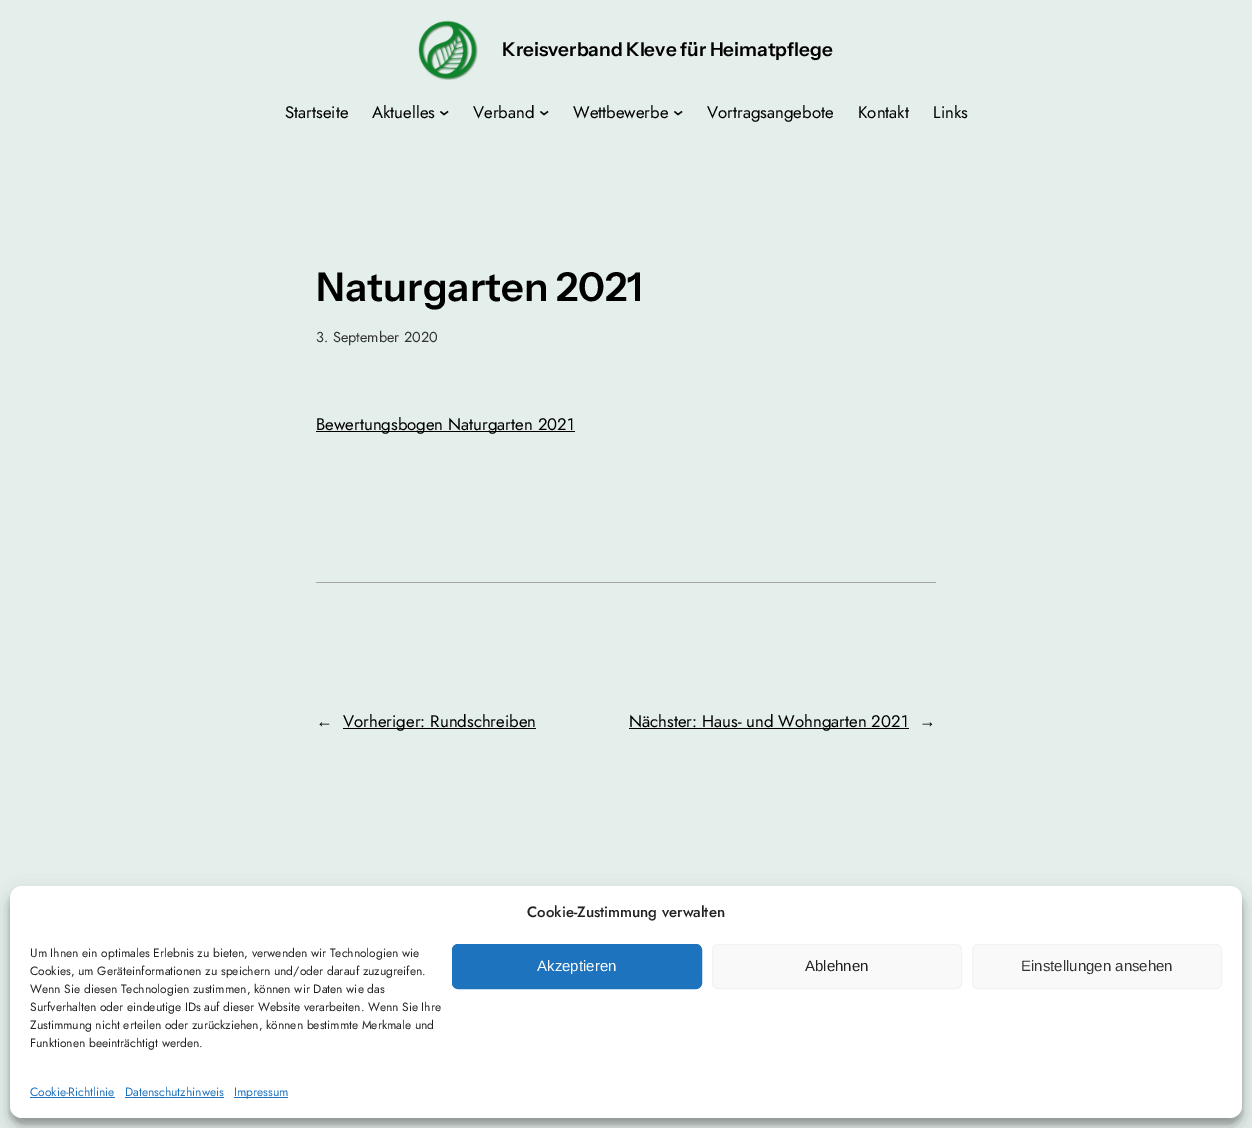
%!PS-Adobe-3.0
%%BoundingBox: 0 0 1252 1128
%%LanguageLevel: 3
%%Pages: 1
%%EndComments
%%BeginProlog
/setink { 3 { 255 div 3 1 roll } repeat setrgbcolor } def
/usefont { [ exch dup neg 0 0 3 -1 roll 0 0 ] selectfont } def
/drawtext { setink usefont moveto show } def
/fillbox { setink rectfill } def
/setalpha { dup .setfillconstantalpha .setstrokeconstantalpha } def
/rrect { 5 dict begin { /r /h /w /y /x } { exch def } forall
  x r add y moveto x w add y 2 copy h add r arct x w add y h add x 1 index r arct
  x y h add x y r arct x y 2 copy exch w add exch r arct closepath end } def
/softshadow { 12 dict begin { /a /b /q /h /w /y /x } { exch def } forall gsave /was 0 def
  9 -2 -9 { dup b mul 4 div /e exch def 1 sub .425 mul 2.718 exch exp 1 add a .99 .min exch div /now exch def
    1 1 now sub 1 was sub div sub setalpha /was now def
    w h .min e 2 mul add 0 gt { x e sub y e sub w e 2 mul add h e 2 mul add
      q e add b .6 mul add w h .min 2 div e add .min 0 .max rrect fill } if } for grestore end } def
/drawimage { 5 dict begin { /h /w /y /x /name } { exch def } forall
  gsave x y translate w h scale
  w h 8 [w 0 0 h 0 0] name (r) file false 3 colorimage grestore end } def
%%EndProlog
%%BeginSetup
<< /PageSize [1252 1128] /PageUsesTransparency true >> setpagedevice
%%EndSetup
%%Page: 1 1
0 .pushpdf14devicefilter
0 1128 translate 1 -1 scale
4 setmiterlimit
0 0 1252 1128 228 239 235 fillbox
(assets/img1.rgb) 418 20 60 60 drawimage
(Kreisverband Kleve für Heimatpflege) 502 56 /InstrumentSans-SemiBold 19 0 0 0 drawtext
(Startseite) 285 118 /Jost-Regular 16.75 0 0 0 drawtext
(Aktuelles) 372 118 /Jost-Regular 16.75 0 0 0 drawtext
1.3 setlinewidth
440.5 111.5 moveto 444 114.5 lineto 448 111.5 lineto stroke
(Verband) 473 118 /Jost-Regular 16.75 0 0 0 drawtext
540.5 111.5 moveto 544 114.5 lineto 548 111.5 lineto stroke
(Wettbewerbe) 573 118 /Jost-Regular 16.75 0 0 0 drawtext
674.5 111.5 moveto 678 114.5 lineto 682 111.5 lineto stroke
(Vortragsangebote) 707 118 /Jost-Regular 16.75 0 0 0 drawtext
(Kontakt) 858 118 /Jost-Regular 16.75 0 0 0 drawtext
(Links) 933 118 /Jost-Regular 16.75 0 0 0 drawtext
(Naturgarten 2021) 316 301 /InstrumentSans-SemiBold 39.75 0 0 0 drawtext
(3. September 2020) 316 342 /Jost-Regular 14.5 53 53 53 drawtext
316 431 259 1 0 0 0 fillbox
(Bewertungsbogen Naturgarten 2021) 316 430 /Jost-Regular 16.75 0 0 0 drawtext
316 582 620 1 164 164 164 fillbox
(←) 316 727 /LiberationSans-Regular 16.75 0 0 0 drawtext
343 728 193 1 0 0 0 fillbox
(Vorheriger: Rundschreiben) 343 727 /Jost-Regular 16.75 0 0 0 drawtext
629 728 280 1 0 0 0 fillbox
(Nächster: Haus- und Wohngarten 2021) 629 727 /Jost-Regular 16.75 0 0 0 drawtext
(→) 919 727 /LiberationSans-Regular 16.75 0 0 0 drawtext
10 892 1232 232 12 3 0.23 softshadow
10 896 1232 232 12 10 0.19 softshadow
255 255 255 setink
10 886 1232 232 12 rrect fill
(Cookie-Zustimmung verwalten) 527 917 /Jost-Medium 15 34 34 34 drawtext
(Um Ihnen ein optimales Erlebnis zu bieten, verwenden wir Technologien wie) 30 957 /Jost-Regular 12 34 34 34 drawtext
(Cookies, um Geräteinformationen zu speichern und/oder darauf zuzugreifen.) 30 975 /Jost-Regular 12 34 34 34 drawtext
(Wenn Sie diesen Technologien zustimmen, können wir Daten wie das) 30 993 /Jost-Regular 12 34 34 34 drawtext
(Surfverhalten oder eindeutige IDs auf dieser Website verarbeiten. Wenn Sie Ihre) 30 1011 /Jost-Regular 12 34 34 34 drawtext
(Zustimmung nicht erteilen oder zurückziehen, können bestimmte Merkmale und) 30 1029 /Jost-Regular 12 34 34 34 drawtext
(Funktionen beeinträchtigt werden.) 30 1047 /Jost-Regular 12 34 34 34 drawtext
30 115 190 setink
452.5 944.5 249 44 5.5 rrect gsave fill grestore
1 setlinewidth
stroke
(Akzeptieren) 537 971 /LiberationSans-Regular 15 255 255 255 drawtext
249 249 249 setink
712.5 944.5 249 44 5.5 rrect gsave fill grestore
242 242 242 setink
stroke
(Ablehnen) 805 971 /LiberationSans-Regular 15 34 34 34 drawtext
249 249 249 setink
972.5 944.5 249 44 5.5 rrect gsave fill grestore
242 242 242 setink
stroke
(Einstellungen ansehen) 1021 971 /LiberationSans-Regular 15 53 53 53 drawtext
(Cookie-Richtlinie) 30 1096 /Jost-Regular 12 30 115 190 drawtext
30 1097 85 1 30 115 190 fillbox
(Datenschutzhinweis) 125 1096 /Jost-Regular 12 30 115 190 drawtext
125 1097 99 1 30 115 190 fillbox
234 1097 54 1 30 115 190 fillbox
(Impressum) 234 1096 /Jost-Regular 12 30 115 190 drawtext
.poppdf14devicefilter showpage
%%EOF
